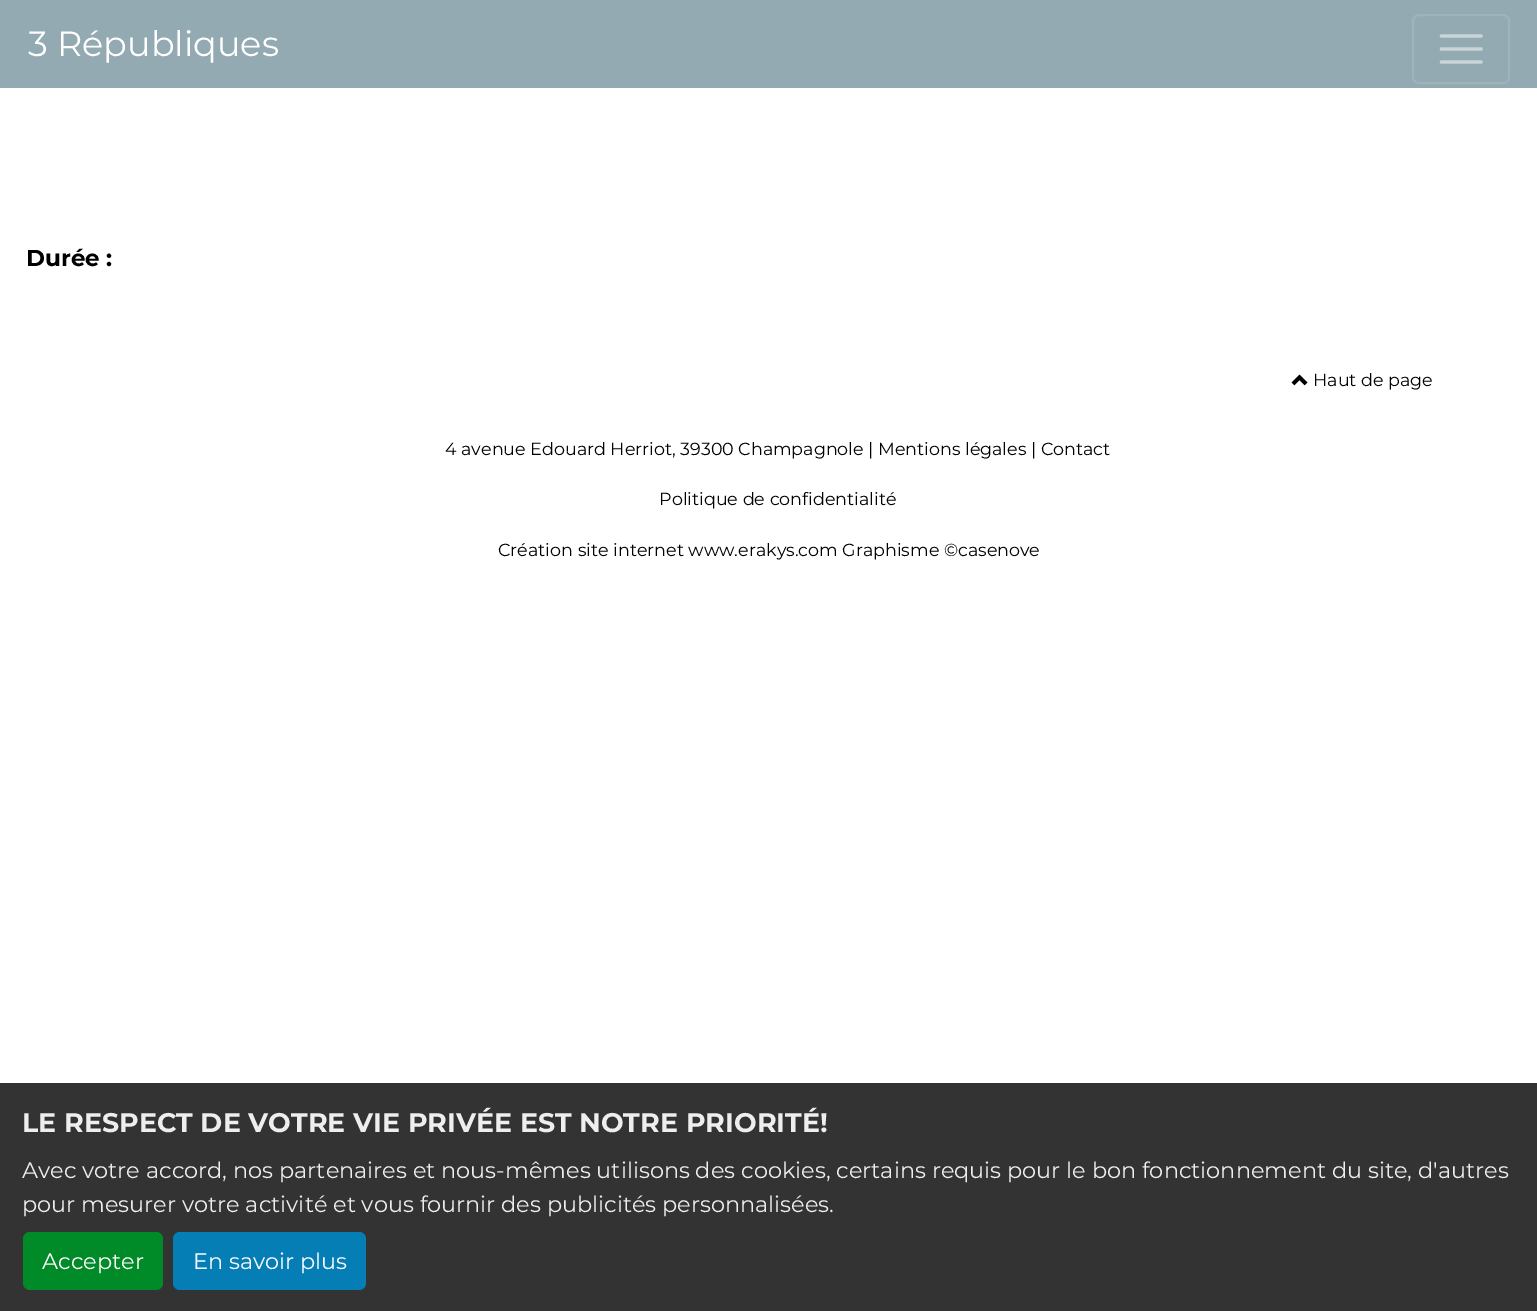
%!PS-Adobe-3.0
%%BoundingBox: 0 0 1537 1311
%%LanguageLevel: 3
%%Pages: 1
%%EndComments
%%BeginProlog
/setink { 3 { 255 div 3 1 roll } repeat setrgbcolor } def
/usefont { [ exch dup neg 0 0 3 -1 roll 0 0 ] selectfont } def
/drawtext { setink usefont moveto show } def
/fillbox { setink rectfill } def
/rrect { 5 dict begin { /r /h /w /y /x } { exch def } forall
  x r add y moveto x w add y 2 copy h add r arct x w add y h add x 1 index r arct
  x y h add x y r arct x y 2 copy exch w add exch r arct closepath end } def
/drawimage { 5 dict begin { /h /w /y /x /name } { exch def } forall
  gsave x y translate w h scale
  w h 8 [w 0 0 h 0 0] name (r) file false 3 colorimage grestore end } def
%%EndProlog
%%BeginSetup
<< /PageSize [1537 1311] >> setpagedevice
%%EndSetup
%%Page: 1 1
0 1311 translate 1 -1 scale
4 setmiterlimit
0 0 1537 1311 255 255 255 fillbox
0 0 1537 88 147 170 178 fillbox
(3 Républiques) 28 56 /Montserrat-Regular 35 255 255 255 drawtext
158 179 186 setink
2 setlinewidth
1413 15 96 68 6 rrect stroke
201 213 217 setink
3.3 setlinewidth
1 setlinecap
1441.5 36 moveto 1481 36 lineto 1441.5 49 moveto 1481 49 lineto 1441.5 62 moveto 1481 62 lineto stroke
(Durée :) 26 266 /Montserrat-Bold 23 0 0 0 drawtext
(assets/img1.rgb) 1291 374 17 12 drawimage
(Haut de page) 1313 386 /Montserrat-Regular 17.5 0 0 0 drawtext
(4 avenue Edouard Herriot, 39300 Champagnole | Mentions légales | Contact) 445 455 /Montserrat-Regular 17.5 0 0 0 drawtext
(Politique de confidentialité) 659 505 /Montserrat-Regular 17.5 0 0 0 drawtext
(Création site internet www.erakys.com Graphisme ©casenove) 498 556 /Montserrat-Regular 17.5 0 0 0 drawtext
0 1083 1537 228 51 51 51 fillbox
(LE RESPECT DE VOTRE VIE PRIVÉE EST NOTRE PRIORITÉ!) 22 1132 /Montserrat-Bold 26.9 238 238 238 drawtext
(Avec votre accord, nos partenaires et nous-mêmes utilisons des cookies, certains requis pour le bon fonctionnement du site, d'autres) 22 1178 /Montserrat-Regular 22.4 238 238 238 drawtext
(pour mesurer votre activité et vous fournir des publicités personnalisées.) 22 1212 /Montserrat-Regular 22.4 238 238 238 drawtext
0 138 40 setink
23 1232 140 58 7 rrect fill
(Accepter) 42 1269 /Montserrat-Regular 22.4 255 255 255 drawtext
5 126 182 setink
173 1232 193 58 7 rrect fill
(En savoir plus) 193 1269 /Montserrat-Regular 22.4 255 255 255 drawtext
showpage
%%EOF
